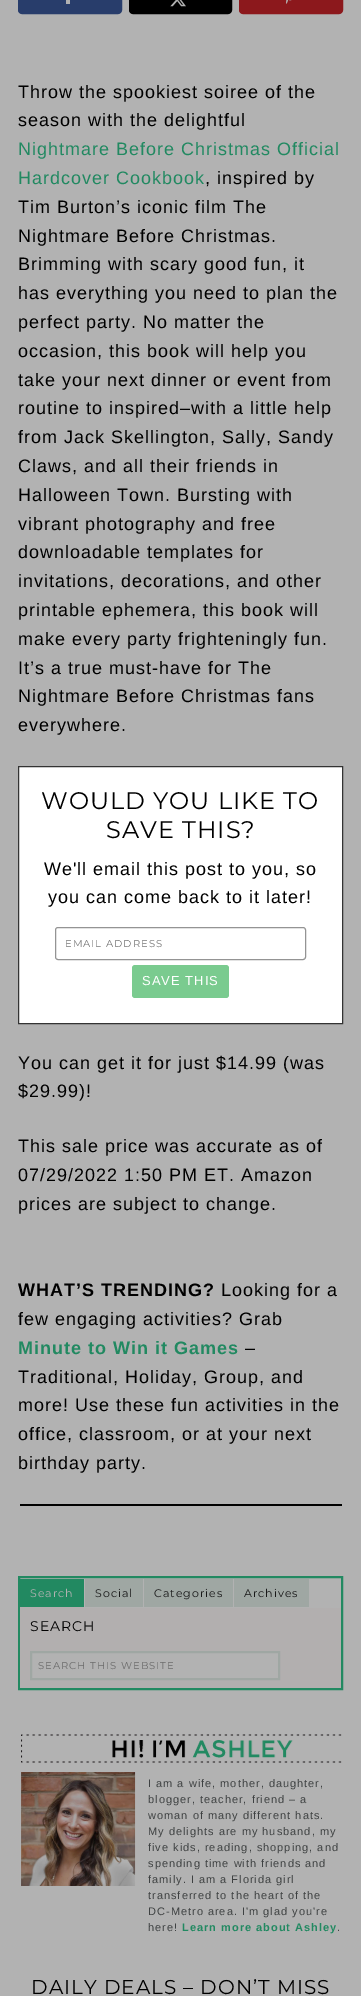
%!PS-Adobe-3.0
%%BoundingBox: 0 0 361 1996
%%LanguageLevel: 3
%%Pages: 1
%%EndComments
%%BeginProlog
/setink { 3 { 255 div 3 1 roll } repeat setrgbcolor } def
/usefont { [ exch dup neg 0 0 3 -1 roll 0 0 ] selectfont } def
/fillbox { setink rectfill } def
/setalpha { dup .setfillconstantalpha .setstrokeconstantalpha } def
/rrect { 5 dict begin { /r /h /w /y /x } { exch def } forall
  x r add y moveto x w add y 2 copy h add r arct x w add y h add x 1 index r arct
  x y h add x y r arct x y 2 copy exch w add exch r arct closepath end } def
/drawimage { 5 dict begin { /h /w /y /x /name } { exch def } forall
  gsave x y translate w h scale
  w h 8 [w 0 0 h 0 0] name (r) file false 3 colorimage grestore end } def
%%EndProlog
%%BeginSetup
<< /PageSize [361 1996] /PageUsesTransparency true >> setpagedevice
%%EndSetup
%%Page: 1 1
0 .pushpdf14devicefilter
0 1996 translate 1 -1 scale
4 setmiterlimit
0 0 361 1996 255 255 255 fillbox
20 1504 322 2 0 0 0 fillbox
58 87 154 setink
19 -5 102 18 3 rrect gsave fill grestore
2 setlinewidth
stroke
66 0 4 4 255 255 255 fillbox
0 0 0 setink
130 -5 101 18 3 rrect gsave fill grestore
stroke
(assets/img1.rgb) 170 0 16 7 drawimage
201 34 40 setink
240 -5 102 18 3 rrect gsave fill grestore
stroke
(assets/img2.rgb) 286 0 6 4 drawimage
/LiberationSans-Regular 18 usefont
0 0 0 setink
18 98 moveto 1 0 (Throw the spookiest soiree of the) ashow
18 126 moveto 1 0 (season with the delightful) ashow
48 196 139 setink
18 155 moveto 1 0 (Nightmare Before Christmas Official) ashow
18 184 moveto 1 0 (Hardcover Cookbook) ashow
0 0 0 setink
205 184 moveto 1 0 (, inspired by) ashow
18 213 moveto 1 0 (Tim Burton’s iconic film The) ashow
18 242 moveto 1 0 (Nightmare Before Christmas.) ashow
18 270 moveto 1 0 (Brimming with scary good fun, it) ashow
18 299 moveto 1 0 (has everything you need to plan the) ashow
18 328 moveto 1 0 (perfect party. No matter the) ashow
18 357 moveto 1 0 (occasion, this book will help you) ashow
18 386 moveto 1 0 (take your next dinner or event from) ashow
18 414 moveto 1 0 (routine to inspired–with a little help) ashow
18 443 moveto 1 0 (from Jack Skellington, Sally, Sandy) ashow
18 472 moveto 1 0 (Claws, and all their friends in) ashow
18 501 moveto 1 0 (Halloween Town. Bursting with) ashow
18 530 moveto 1 0 (vibrant photography and free) ashow
18 558 moveto 1 0 (downloadable templates for) ashow
18 587 moveto 1 0 (invitations, decorations, and other) ashow
18 616 moveto 1 0 (printable ephemera, this book will) ashow
18 645 moveto 1 0 (make every party frighteningly fun.) ashow
18 674 moveto 1 0 (It’s a true must-have for The) ashow
18 702 moveto 1 0 (Nightmare Before Christmas fans) ashow
18 731 moveto 1 0 (everywhere.) ashow
18 1069 moveto 1 0 (You can get it for just $14.99 \(was) ashow
18 1097 moveto 1 0 ($29.99\)!) ashow
18 1152 moveto 1 0 (This sale price was accurate as of) ashow
18 1181 moveto 1 0 (07/29/2022 1:50 PM ET. Amazon) ashow
18 1210 moveto 1 0 (prices are subject to change.) ashow
/LiberationSans-Bold 18 usefont
18 1296 moveto 1 0 (WHAT’S TRENDING?) ashow
/LiberationSans-Regular 18 usefont
221 1296 moveto 1 0 (Looking for a) ashow
18 1325 moveto 1 0 (few engaging activities? Grab) ashow
/LiberationSans-Bold 18 usefont
48 196 139 setink
18 1354 moveto 1 0 (Minute to Win it Games) ashow
/LiberationSans-Regular 18 usefont
0 0 0 setink
245 1354 moveto 1 0 (–) ashow
18 1383 moveto 1 0 (Traditional, Holiday, Group, and) ashow
18 1411 moveto 1 0 (more! Use these fun activities in the) ashow
18 1440 moveto 1 0 (office, classroom, or at your next) ashow
18 1469 moveto 1 0 (birthday party.) ashow
48 196 139 setink
19 1577 323 112 rectstroke
20 1579 64 28 48 196 139 fillbox
20 1607 64 1 255 250 250 fillbox
/Montserrat-Thin 11 usefont
255 255 255 setink
30 1597 moveto 1 0 (Search) ashow
85 1579 58 28 228 239 234 fillbox
34 34 34 setink
95 1597 moveto 1 0 (Social) ashow
144 1579 89 28 228 239 234 fillbox
34 34 34 setink
154 1597 moveto 1 0 (Categories) ashow
234 1579 75 28 228 239 234 fillbox
34 34 34 setink
244 1597 moveto 1 0 (Archives) ashow
20 1608 321 80 255 250 250 fillbox
/Montserrat-Thin 14 usefont
0 0 0 setink
30 1631 moveto 1 0 (SEARCH) ashow
255 255 255 setink
31 1652 moveto 279 1652 lineto 279 1679 lineto 31 1679 lineto closepath gsave fill grestore
228 239 234 setink
stroke
/Montserrat-Thin 10 usefont
153 153 153 setink
38 1669 moveto 1 0 (SEARCH THIS WEBSITE) ashow
(assets/img3.rgb) 21 1734 321 152 drawimage
/LiberationSans-Regular 11 usefont
89 93 94 setink
148 1787 moveto 1 0 (I am a wife, mother, daughter,) ashow
148 1803 moveto 1 0 (blogger, teacher, friend – a) ashow
148 1819 moveto 1 0 (woman of many different hats.) ashow
148 1835 moveto 1 0 (My delights are my husband, my) ashow
148 1851 moveto 1 0 (five kids, reading, shopping, and) ashow
148 1867 moveto 1 0 (spending time with friends and) ashow
148 1883 moveto 1 0 (family. I am a Florida girl) ashow
148 1899 moveto 1 0 (transferred to the heart of the) ashow
148 1915 moveto 1 0 (DC-Metro area. I'm glad you're) ashow
148 1931 moveto 1 0 (here!) ashow
/LiberationSans-Bold 11 usefont
48 196 139 setink
182 1931 moveto 1 0 (Learn more about Ashley) ashow
/LiberationSans-Regular 11 usefont
89 93 94 setink
337 1931 moveto 1 0 (.) ashow
/Montserrat-Thin 20 usefont
0 0 0 setink
31 1994 moveto 1 0 (DAILY DEALS – DON’T MISS) ashow
0.3 setalpha
1996 setlinewidth
-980 -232 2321 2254 rectstroke
1 setalpha
51 51 51 setink
1 setlinewidth
18.5 766.5 324 257 rectstroke
/Montserrat-Thin 24 usefont
0 0 0 setink
41 809 moveto 1 0 (WOULD YOU LIKE TO) ashow
106 838 moveto 1 0 (SAVE THIS?) ashow
/LiberationSans-Regular 18 usefont
44 875 moveto 1 0 (We'll email this post to you, so) ashow
48 903 moveto 1 0 (you can come back to it later!) ashow
148 148 148 setink
55.5 927.5 250 32 2.5 rrect stroke
/Montserrat-Thin 10 usefont
118 118 118 setink
65 947 moveto 1 0 (EMAIL ADDRESS) ashow
122 203 143 setink
132 965 97 33 3 rrect fill
/LiberationSans-Regular 13 usefont
255 255 255 setink
142 985 moveto 1 0 (SAVE THIS) ashow
.poppdf14devicefilter showpage
%%EOF
